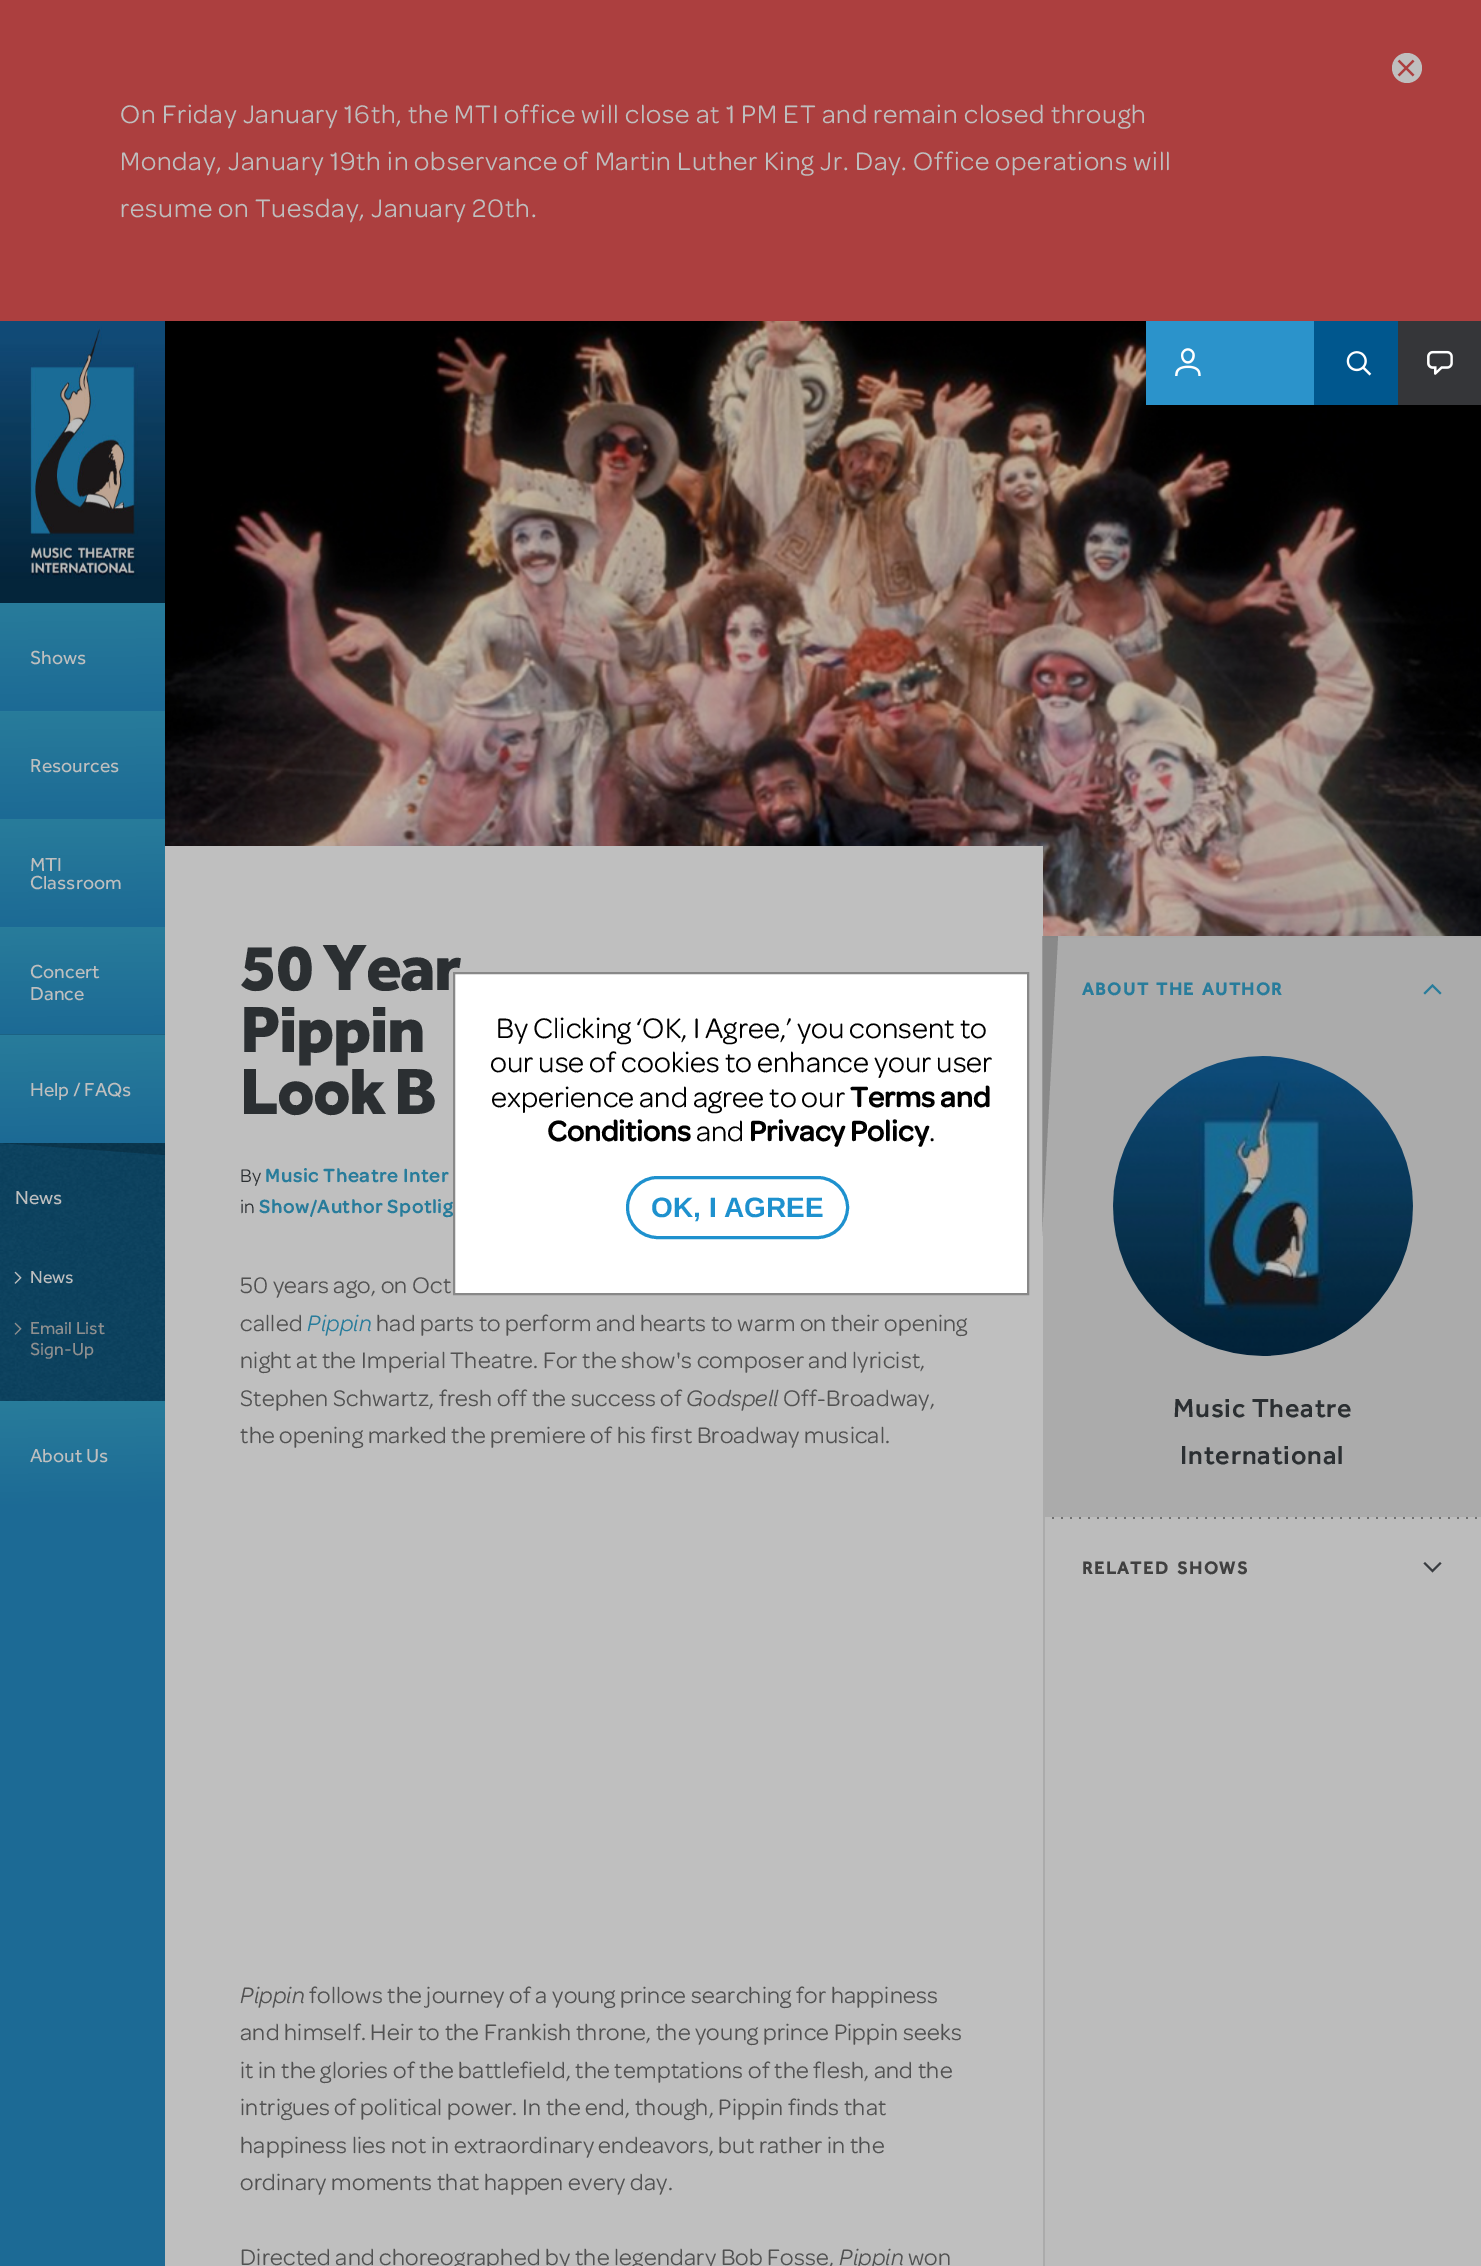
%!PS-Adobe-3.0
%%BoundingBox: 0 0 1481 2266
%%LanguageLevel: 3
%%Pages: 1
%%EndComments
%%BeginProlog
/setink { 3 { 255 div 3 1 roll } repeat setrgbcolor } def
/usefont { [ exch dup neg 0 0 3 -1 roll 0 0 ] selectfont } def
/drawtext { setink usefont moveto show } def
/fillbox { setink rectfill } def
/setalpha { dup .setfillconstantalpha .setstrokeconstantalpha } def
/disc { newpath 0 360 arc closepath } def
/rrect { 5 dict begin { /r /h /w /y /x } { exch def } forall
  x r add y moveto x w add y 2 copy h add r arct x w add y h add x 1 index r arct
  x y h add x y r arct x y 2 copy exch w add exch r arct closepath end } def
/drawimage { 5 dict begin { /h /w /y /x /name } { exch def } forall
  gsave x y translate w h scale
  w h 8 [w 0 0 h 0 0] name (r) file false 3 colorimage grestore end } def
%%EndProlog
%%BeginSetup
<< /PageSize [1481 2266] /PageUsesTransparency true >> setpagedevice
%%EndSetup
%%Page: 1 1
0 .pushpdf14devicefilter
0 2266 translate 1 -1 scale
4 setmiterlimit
0 0 1481 2266 172 63 63 fillbox
191 191 191 setink
1407 68 15 disc fill
(assets/img1.rgb) 1397 59 18 18 drawimage
/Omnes-Regular 27 usefont
120 123 moveto 0.8 0 (On Friday January 16th, the MTI office will close at 1 PM ET and remain closed through) ashow
120 170 moveto 0.8 0 (Monday, January 19th in observance of Martin Luther King Jr. Day. Office operations will) ashow
120 217 moveto 0.8 0 (resume on Tuesday, January 20th.) ashow
0 1509 165 757 28 106 149 fillbox
(assets/img10.rgb) 165 321 1316 615 drawimage
1146 321 168 84 43 147 203 fillbox
(assets/img2.rgb) 1175 348 26 28 drawimage
1314 321 84 84 0 87 142 fillbox
(assets/img3.rgb) 1346 351 26 25 drawimage
1398 321 83 84 53 54 57 fillbox
(assets/img4.rgb) 1427 350 26 25 drawimage
(assets/img5.rgb) 0 321 165 282 drawimage
gsave 0 603 moveto 165 603 lineto 165 711 lineto 0 711 lineto closepath clip newpath
<< /ShadingType 2 /ColorSpace /DeviceRGB /Coords [82 603 83 711] /Extend [true true] /Function << /FunctionType 2 /Domain [0 1] /C0 [0.157 0.486 0.608] /C1 [0.11 0.416 0.584] /N 1 >> >> shfill grestore
(Shows) 30 664 /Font-Regular 19.5 191 191 191 drawtext
gsave 0 711 moveto 165 711 lineto 165 819 lineto 0 819 lineto closepath clip newpath
<< /ShadingType 2 /ColorSpace /DeviceRGB /Coords [82 711 83 819] /Extend [true true] /Function << /FunctionType 2 /Domain [0 1] /C0 [0.157 0.486 0.608] /C1 [0.11 0.416 0.584] /N 1 >> >> shfill grestore
(Resources) 30 772 /Font-Regular 19.5 191 191 191 drawtext
gsave 0 819 moveto 165 819 lineto 165 927 lineto 0 927 lineto closepath clip newpath
<< /ShadingType 2 /ColorSpace /DeviceRGB /Coords [82 819 83 927] /Extend [true true] /Function << /FunctionType 2 /Domain [0 1] /C0 [0.157 0.486 0.608] /C1 [0.11 0.416 0.584] /N 1 >> >> shfill grestore
(MTI) 30 871 /Font-Regular 19.5 191 191 191 drawtext
(Classroom) 30 889 /Font-Regular 19.5 191 191 191 drawtext
gsave 0 927 moveto 165 927 lineto 165 1034 lineto 0 1034 lineto closepath clip newpath
<< /ShadingType 2 /ColorSpace /DeviceRGB /Coords [82 927 83 1034] /Extend [true true] /Function << /FunctionType 2 /Domain [0 1] /C0 [0.157 0.486 0.608] /C1 [0.11 0.416 0.584] /N 1 >> >> shfill grestore
0 1034 165 1 28 98 131 fillbox
(Concert) 30 978 /Font-Regular 19.5 191 191 191 drawtext
(Dance) 30 1000 /Font-Regular 19.5 191 191 191 drawtext
gsave 0 1035 moveto 165 1035 lineto 165 1143 lineto 0 1143 lineto closepath clip newpath
<< /ShadingType 2 /ColorSpace /DeviceRGB /Coords [82 1035 83 1143] /Extend [true true] /Function << /FunctionType 2 /Domain [0 1] /C0 [0.157 0.486 0.608] /C1 [0.11 0.416 0.584] /N 1 >> >> shfill grestore
(Help / FAQs) 30 1096 /Font-Regular 19.5 191 191 191 drawtext
0 1143 165 258 11 62 89 fillbox
(assets/img6.rgb) 0 1143 165 108 drawimage
(News) 15 1204 /Font-Regular 19.5 191 191 191 drawtext
(assets/img7.rgb) 0 1251 165 150 drawimage
0.2 setalpha
0 0 0 setink
165 1143 moveto 165 1155 lineto 0 1143 lineto closepath fill
1 setalpha
(assets/img8.rgb) 14 1271 8 13 drawimage
(News) 30 1283 /Font-Regular 18 191 191 191 drawtext
(assets/img9.rgb) 14 1322 8 13 drawimage
(Email List) 30 1334 /Font-Regular 18 143 143 143 drawtext
(Sign-Up) 30 1355 /Font-Regular 18 143 143 143 drawtext
gsave 0 1401 moveto 165 1401 lineto 165 1509 lineto 0 1509 lineto closepath clip newpath
<< /ShadingType 2 /ColorSpace /DeviceRGB /Coords [82 1401 83 1509] /Extend [true true] /Function << /FunctionType 2 /Domain [0 1] /C0 [0.157 0.486 0.608] /C1 [0.11 0.416 0.584] /N 1 >> >> shfill grestore
(About Us) 30 1462 /Font-Regular 19.5 191 191 191 drawtext
165 936 878 1330 191 191 191 fillbox
165 846 878 90 191 191 191 fillbox
/Font-Black 67.5 usefont
43 47 50 setink
240 990 moveto -1.5 0 (50 Year) ashow
240 1052 moveto -1.5 0 (Pippin) ashow
240 1114 moveto -1.5 0 (Look B) ashow
1045 938 436 103 171 171 171 fillbox
1043 936 438 2 169 169 169 fillbox
1043 936 2 105 171 171 171 fillbox
1043 1041 438 476 171 171 171 fillbox
0.2 setalpha
0 0 0 setink
1042 936 moveto 1058 936 lineto 1042 1236 lineto closepath fill
1 setalpha
(By) 240 1182 /Omnes-Regular 19.5 43 47 50 drawtext
/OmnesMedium-Bold 19.5 usefont
40 124 155 setink
265 1182 moveto 1 0 (Music Theatre Inter) ashow
(in) 240 1213 /Omnes-Regular 19.5 43 47 50 drawtext
/OmnesMedium-Bold 19.5 usefont
40 124 155 setink
259 1213 moveto 1 0 (Show/Author Spotlig) ashow
/Omnes-Regular 24 usefont
81 81 81 setink
240 1293 moveto 0.25 0 (50 years ago, on Oct) ashow
240 1331 moveto 0.25 0 (called) ashow
/Omnes-Italic 24 usefont
40 124 155 setink
307 1331 moveto 0.25 0 (Pippin) ashow
/Omnes-Regular 24 usefont
81 81 81 setink
376 1331 moveto 0.25 0 (had parts to perform and hearts to warm on their opening) ashow
240 1368 moveto 0.25 0 (night at the Imperial Theatre. For the show's composer and lyricist,) ashow
240 1406 moveto 0.25 0 (Stephen Schwartz, fresh off the success of) ashow
/Omnes-Italic 24 usefont
686 1406 moveto 0.25 0 (Godspell) ashow
/Omnes-Regular 24 usefont
783 1406 moveto 0.25 0 (Off-Broadway,) ashow
240 1443 moveto 0.25 0 (the opening marked the premiere of his first Broadway musical.) ashow
/Omnes-Italic 24 usefont
240 2003 moveto 0.25 0 (Pippin) ashow
/Omnes-Regular 24 usefont
309 2003 moveto 0.25 0 (follows the journey of a young prince searching for happiness) ashow
240 2040 moveto 0.25 0 (and himself. Heir to the Frankish throne, the young prince Pippin seeks) ashow
240 2078 moveto 0.25 0 (it in the glories of the battlefield, the temptations of the flesh, and the) ashow
240 2115 moveto 0.25 0 (intrigues of political power. In the end, though, Pippin finds that) ashow
240 2153 moveto 0.25 0 (happiness lies not in extraordinary endeavors, but rather in the) ashow
240 2190 moveto 0.25 0 (ordinary moments that happen every day.) ashow
240 2265 moveto 0.25 0 (Directed and choreographed by the legendary Bob Fosse,) ashow
/Omnes-Italic 24 usefont
839 2265 moveto 0.25 0 (Pippin) ashow
/Omnes-Regular 24 usefont
908 2265 moveto 0.25 0 (won) ashow
/Font-Bold 18 usefont
40 124 155 setink
1082 995 moveto 2 0 32 1.5 0 (ABOUT THE AUTHOR) awidthshow
1432.5 984 moveto 1441.5 993 lineto 1440 994.5 lineto 1432.5 987 lineto 1425 994.5 lineto 1423.5 993 lineto closepath fill
(assets/img11.rgb) 1113 1056 300 300 drawimage
/Font-Medium 27 usefont
43 47 50 setink
1173 1417 moveto 0.8 0 (Music Theatre) ashow
1180 1464 moveto 0.8 0 (International) ashow
1045 1517 436 749 188 188 188 fillbox
1043 1517 2 749 171 171 171 fillbox
(assets/img12.rgb) 1052 1517 425 2 drawimage
/Font-Bold 18 usefont
64 64 64 setink
1082 1574 moveto 3 0 32 1.5 0 (RELATED SHOWS) awidthshow
57 60 64 setink
1432.5 1572.5 moveto 1423.5 1563.5 lineto 1425 1562 lineto 1432.5 1569.5 lineto 1440 1562 lineto 1441.5 1563.5 lineto closepath fill
255 255 255 setink
454 973 moveto 1028 973 lineto 1028 1294 lineto 454 1294 lineto closepath gsave fill grestore
136 136 136 setink
2 setlinewidth
stroke
(By Clicking ‘OK, I Agree,’ you consent to) 496 1038 /Omnes-Regular 30 0 0 0 drawtext
(our use of cookies to enhance your user) 490 1072 /Omnes-Regular 30 0 0 0 drawtext
(experience and agree to our) 491 1107 /Omnes-Regular 30 0 0 0 drawtext
(Terms and) 850 1107 /OmnesMedium-Bold 30 0 0 0 drawtext
(Conditions) 547 1141 /OmnesMedium-Bold 30 0 0 0 drawtext
(and) 696 1141 /Omnes-Regular 30 0 0 0 drawtext
(Privacy Policy) 749 1141 /OmnesMedium-Bold 30 0 0 0 drawtext
(.) 929 1141 /Omnes-Regular 30 0 0 0 drawtext
30 145 206 setink
3 setlinewidth
627.5 1177.5 220 60 30 rrect stroke
(OK, I AGREE) 651 1217 /LiberationSans-Bold 28 30 145 206 drawtext
.poppdf14devicefilter showpage
%%EOF
